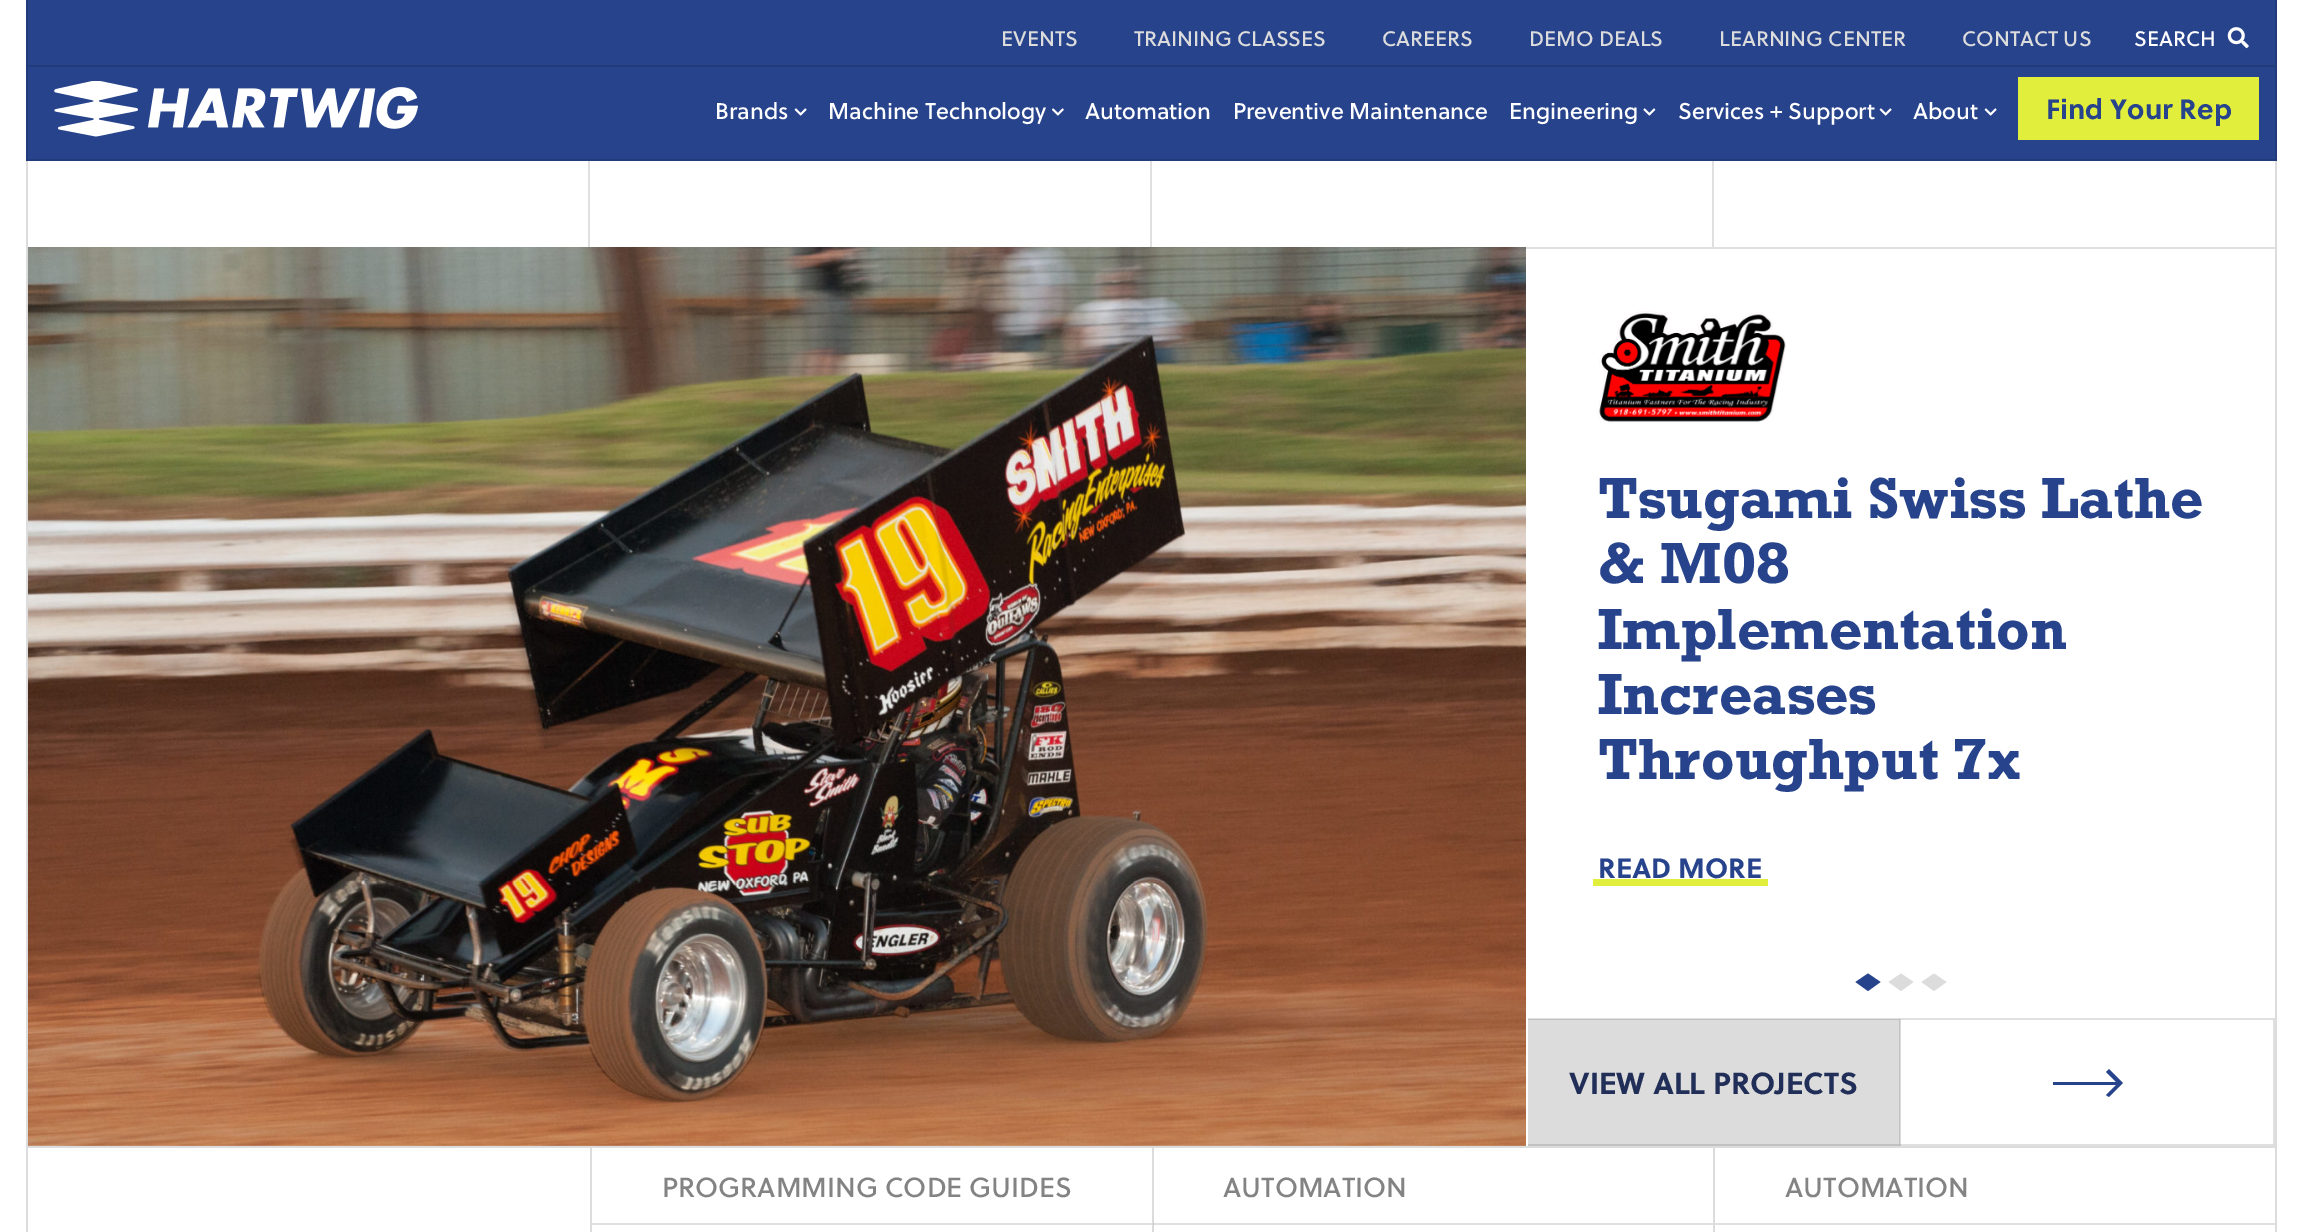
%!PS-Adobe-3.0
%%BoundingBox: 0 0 2303 1232
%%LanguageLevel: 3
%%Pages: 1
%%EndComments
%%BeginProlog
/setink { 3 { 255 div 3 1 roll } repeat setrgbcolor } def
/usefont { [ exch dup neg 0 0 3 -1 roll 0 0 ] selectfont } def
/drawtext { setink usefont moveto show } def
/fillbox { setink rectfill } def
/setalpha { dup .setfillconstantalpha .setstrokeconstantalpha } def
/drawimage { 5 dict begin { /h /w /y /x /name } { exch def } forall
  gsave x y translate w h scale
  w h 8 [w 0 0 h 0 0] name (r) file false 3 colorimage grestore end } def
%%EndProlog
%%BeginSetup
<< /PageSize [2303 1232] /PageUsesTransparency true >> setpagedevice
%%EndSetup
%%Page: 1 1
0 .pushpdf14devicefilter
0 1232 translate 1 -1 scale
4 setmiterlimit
0 0 2303 1232 255 255 255 fillbox
1153 1223 560 2 224 224 224 fillbox
26 0 2251 161 39 67 140 fillbox
34 59 123 setink
2277 0 moveto 2277 161 lineto 2275 159 lineto 2275 0 lineto closepath fill
0.12 setalpha
0 0 0 setink
2277 161 moveto 26 161 lineto 28 159 lineto 2275 159 lineto closepath fill
26 161 moveto 26 0 lineto 28 0 lineto 28 159 lineto closepath fill
1 setalpha
28 65 2247 2 34 59 123 fillbox
(EVENTS) 1001 46 /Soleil-Regular 21 220 220 220 drawtext
(TRAINING CLASSES) 1134 46 /Soleil-Regular 21 220 220 220 drawtext
(CAREERS) 1382 46 /Soleil-Regular 21 220 220 220 drawtext
(DEMO DEALS) 1529 46 /Soleil-Regular 21 220 220 220 drawtext
(LEARNING CENTER) 1719 46 /Soleil-Regular 21 220 220 220 drawtext
(CONTACT US) 1962 46 /Soleil-Regular 21 220 220 220 drawtext
(SEARCH) 2134 46 /Soleil-Regular 21 255 255 255 drawtext
(assets/img1.rgb) 2227 27 22 22 drawimage
(assets/img2.rgb) 54 81 364 56 drawimage
(Brands) 715 119 /Soleil-Regular 22.75 255 255 255 drawtext
(assets/img3.rgb) 794 108 13 8 drawimage
(Machine Technology) 828 119 /Soleil-Regular 22.75 255 255 255 drawtext
(assets/img4.rgb) 1052 108 12 8 drawimage
(Automation) 1085 119 /Soleil-Regular 22.75 255 255 255 drawtext
(Preventive Maintenance) 1233 119 /Soleil-Regular 22.75 255 255 255 drawtext
(Engineering) 1509 119 /Soleil-Regular 22.75 255 255 255 drawtext
(assets/img5.rgb) 1643 108 13 8 drawimage
(Services + Support) 1678 119 /Soleil-Regular 22.75 255 255 255 drawtext
(assets/img3.rgb) 1879 108 13 8 drawimage
(About) 1913 119 /Soleil-Regular 22.75 255 255 255 drawtext
(assets/img3.rgb) 1984 108 13 8 drawimage
2018 77 241 63 225 239 60 fillbox
(Find Your Rep) 2046 119 /Soleil-Bold 28 39 67 140 drawtext
2275 161 2 86 220 220 220 fillbox
26 161 2 86 220 220 220 fillbox
588 161 2 86 224 224 224 fillbox
1150 161 2 86 224 224 224 fillbox
1712 161 2 86 224 224 224 fillbox
(assets/img6.rgb) 28 247 1498 899 drawimage
1526 247 749 2 224 224 224 fillbox
(assets/img7.rgb) 1598 311 188 111 drawimage
(Tsugami Swiss Lathe) 1598 518 /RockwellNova-Bold 54.5 39 67 140 drawtext
(& M08) 1598 583 /RockwellNova-Bold 54.5 39 67 140 drawtext
(Implementation) 1598 649 /RockwellNova-Bold 54.5 39 67 140 drawtext
(Increases) 1598 714 /RockwellNova-Bold 54.5 39 67 140 drawtext
(Throughput 7x) 1598 779 /RockwellNova-Bold 54.5 39 67 140 drawtext
(READ MORE) 1598 878 /Soleil-Bold 28 39 67 140 drawtext
1593 879 175 7 225 239 60 fillbox
39 67 140 setink
1868 973.5 moveto 1880.5 982 lineto 1868 991 lineto 1855.5 982 lineto closepath fill
220 220 220 setink
1901 973.5 moveto 1913.5 982 lineto 1901 991 lineto 1888.5 982 lineto closepath 1934 973.5 moveto 1946.5 982 lineto 1934 991 lineto 1921.5 982 lineto closepath fill
1528 1019 373 127 220 220 220 fillbox
0.12 setalpha
0 0 0 setink
1528 1018 moveto 1900 1018 lineto 1899 1020 lineto 1528 1020 lineto closepath fill
1900 1018 moveto 1900 1146 lineto 1899 1144 lineto 1899 1020 lineto closepath fill
1900 1146 moveto 1528 1146 lineto 1528 1144 lineto 1899 1144 lineto closepath fill
1 setalpha
(VIEW ALL PROJECTS) 1569 1094 /Soleil-Bold 30.5 32 46 88 drawtext
0.12 setalpha
0 0 0 setink
1900 1018 moveto 2275 1018 lineto 2273 1020 lineto 1900 1020 lineto closepath fill
2275 1018 moveto 2275 1146 lineto 2273 1144 lineto 2273 1020 lineto closepath fill
2275 1146 moveto 1900 1146 lineto 1900 1144 lineto 2273 1144 lineto closepath fill
1 setalpha
39 67 140 setink
2109 1069 moveto 2106 1072 lineto 2116 1082 lineto 2053 1082 lineto 2053 1085 lineto 2116 1085 lineto 2106 1095 lineto 2109 1097 lineto 2123 1083 lineto closepath fill
26 1146 2251 2 220 220 220 fillbox
2275 247 2 985 220 220 220 fillbox
26 247 2 985 220 220 220 fillbox
590 1148 2 84 220 220 220 fillbox
592 1223 560 2 224 224 224 fillbox
(PROGRAMMING CODE GUIDES) 662 1197 /Soleil-Regular 27.6 131 131 131 drawtext
1152 1148 2 84 220 220 220 fillbox
1153 1223 1 2 194 194 194 fillbox
(AUTOMATION) 1223 1197 /Soleil-Regular 27.6 131 131 131 drawtext
1713 1148 2 84 220 220 220 fillbox
1715 1223 560 2 224 224 224 fillbox
(AUTOMATION) 1785 1197 /Soleil-Regular 27.6 131 131 131 drawtext
.poppdf14devicefilter showpage
%%EOF
